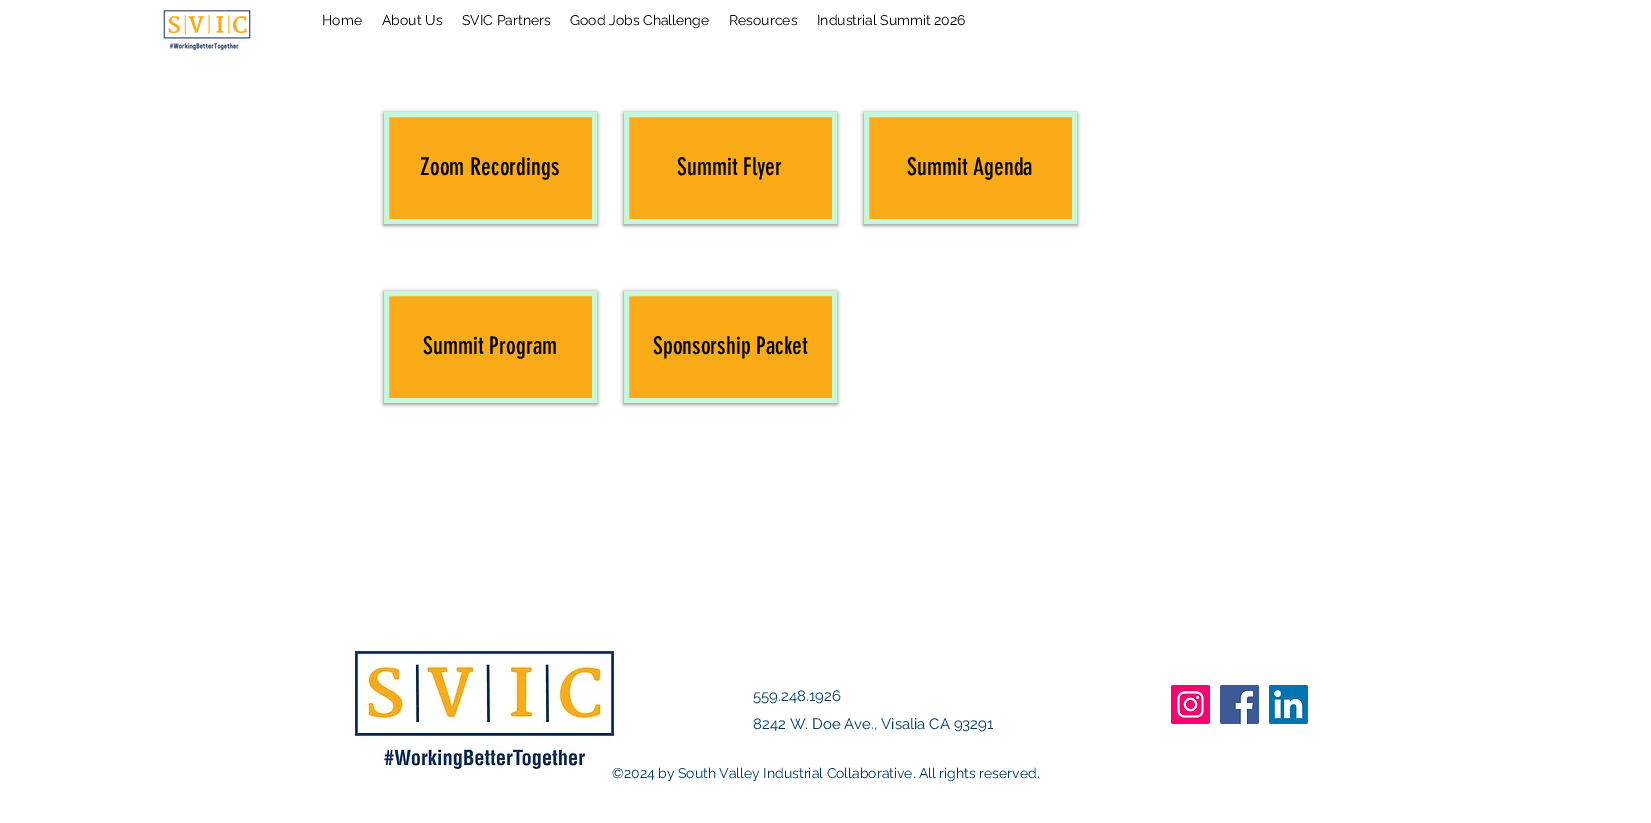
%!PS-Adobe-3.0
%%BoundingBox: 0 0 1651 823
%%LanguageLevel: 3
%%Pages: 1
%%EndComments
%%BeginProlog
/setink { 3 { 255 div 3 1 roll } repeat setrgbcolor } def
/usefont { [ exch dup neg 0 0 3 -1 roll 0 0 ] selectfont } def
/drawtext { setink usefont moveto show } def
/fillbox { setink rectfill } def
/setalpha { dup .setfillconstantalpha .setstrokeconstantalpha } def
/rrect { 5 dict begin { /r /h /w /y /x } { exch def } forall
  x r add y moveto x w add y 2 copy h add r arct x w add y h add x 1 index r arct
  x y h add x y r arct x y 2 copy exch w add exch r arct closepath end } def
/softshadow { 12 dict begin { /a /b /q /h /w /y /x } { exch def } forall gsave /was 0 def
  9 -2 -9 { dup b mul 4 div /e exch def 1 sub .425 mul 2.718 exch exp 1 add a .99 .min exch div /now exch def
    1 1 now sub 1 was sub div sub setalpha /was now def
    w h .min e 2 mul add 0 gt { x e sub y e sub w e 2 mul add h e 2 mul add
      q e add b .6 mul add w h .min 2 div e add .min 0 .max rrect fill } if } for grestore end } def
/drawimage { 5 dict begin { /h /w /y /x /name } { exch def } forall
  gsave x y translate w h scale
  w h 8 [w 0 0 h 0 0] name (r) file false 3 colorimage grestore end } def
%%EndProlog
%%BeginSetup
<< /PageSize [1651 823] /PageUsesTransparency true >> setpagedevice
%%EndSetup
%%Page: 1 1
0 .pushpdf14devicefilter
0 823 translate 1 -1 scale
4 setmiterlimit
0 0 1651 823 255 255 255 fillbox
(assets/img1.rgb) 163 10 88 41 drawimage
(Home) 322 25 /Raleway-Regular 14 0 0 0 drawtext
(About Us) 382 25 /Raleway-Regular 14 0 0 0 drawtext
(SVIC Partners) 462 25 /Raleway-Regular 14 0 0 0 drawtext
(Good Jobs Challenge) 570 25 /Raleway-Regular 14 0 0 0 drawtext
(Resources) 729 25 /Raleway-Regular 14 0 0 0 drawtext
(Industrial Summit 2026) 817 25 /Raleway-Regular 14 0 0 0 drawtext
384 113 213 112 0 2 0.6 softshadow
251 171 24 setink
386.5 114.5 moveto 594.5 114.5 lineto 594.5 221.5 lineto 386.5 221.5 lineto closepath gsave fill grestore
199 247 216 setink
5 setlinewidth
stroke
(Zoom Recordings) 420 175 /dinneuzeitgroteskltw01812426-Regular 24 0 0 0 drawtext
624 113 213 112 0 2 0.6 softshadow
251 171 24 setink
626.5 114.5 moveto 834.5 114.5 lineto 834.5 221.5 lineto 626.5 221.5 lineto closepath gsave fill grestore
199 247 216 setink
stroke
(Summit Flyer) 677 175 /dinneuzeitgroteskltw01812426-Regular 24 0 0 0 drawtext
864 113 213 112 0 2 0.6 softshadow
251 171 24 setink
866.5 114.5 moveto 1074.5 114.5 lineto 1074.5 221.5 lineto 866.5 221.5 lineto closepath gsave fill grestore
199 247 216 setink
stroke
(Summit Agenda) 907 175 /dinneuzeitgroteskltw01812426-Regular 24 0 0 0 drawtext
384 292 213 112 0 2 0.6 softshadow
251 171 24 setink
386.5 293.5 moveto 594.5 293.5 lineto 594.5 400.5 lineto 386.5 400.5 lineto closepath gsave fill grestore
199 247 216 setink
stroke
(Summit Program) 423 354 /dinneuzeitgroteskltw01812426-Regular 24 0 0 0 drawtext
624 292 213 112 0 2 0.6 softshadow
251 171 24 setink
626.5 293.5 moveto 834.5 293.5 lineto 834.5 400.5 lineto 626.5 400.5 lineto closepath gsave fill grestore
199 247 216 setink
stroke
(Sponsorship Packet) 653 354 /dinneuzeitgroteskltw01812426-Regular 24 0 0 0 drawtext
(©2024 by South Valley Industrial Collaborative. All rights reserved.) 612 778 /Raleway-Regular 14 0 56 98 drawtext
(assets/img2.rgb) 355 651 259 118 drawimage
(559.248.1926) 753 701 /Raleway-Regular 15 0 56 98 drawtext
(8242 W. Doe Ave., Visalia CA 93291) 753 729 /Raleway-Regular 15 0 56 98 drawtext
(assets/img3.rgb) 1171 685 39 39 drawimage
(assets/img4.rgb) 1220 685 39 39 drawimage
(assets/img5.rgb) 1269 685 39 39 drawimage
.poppdf14devicefilter showpage
%%EOF
